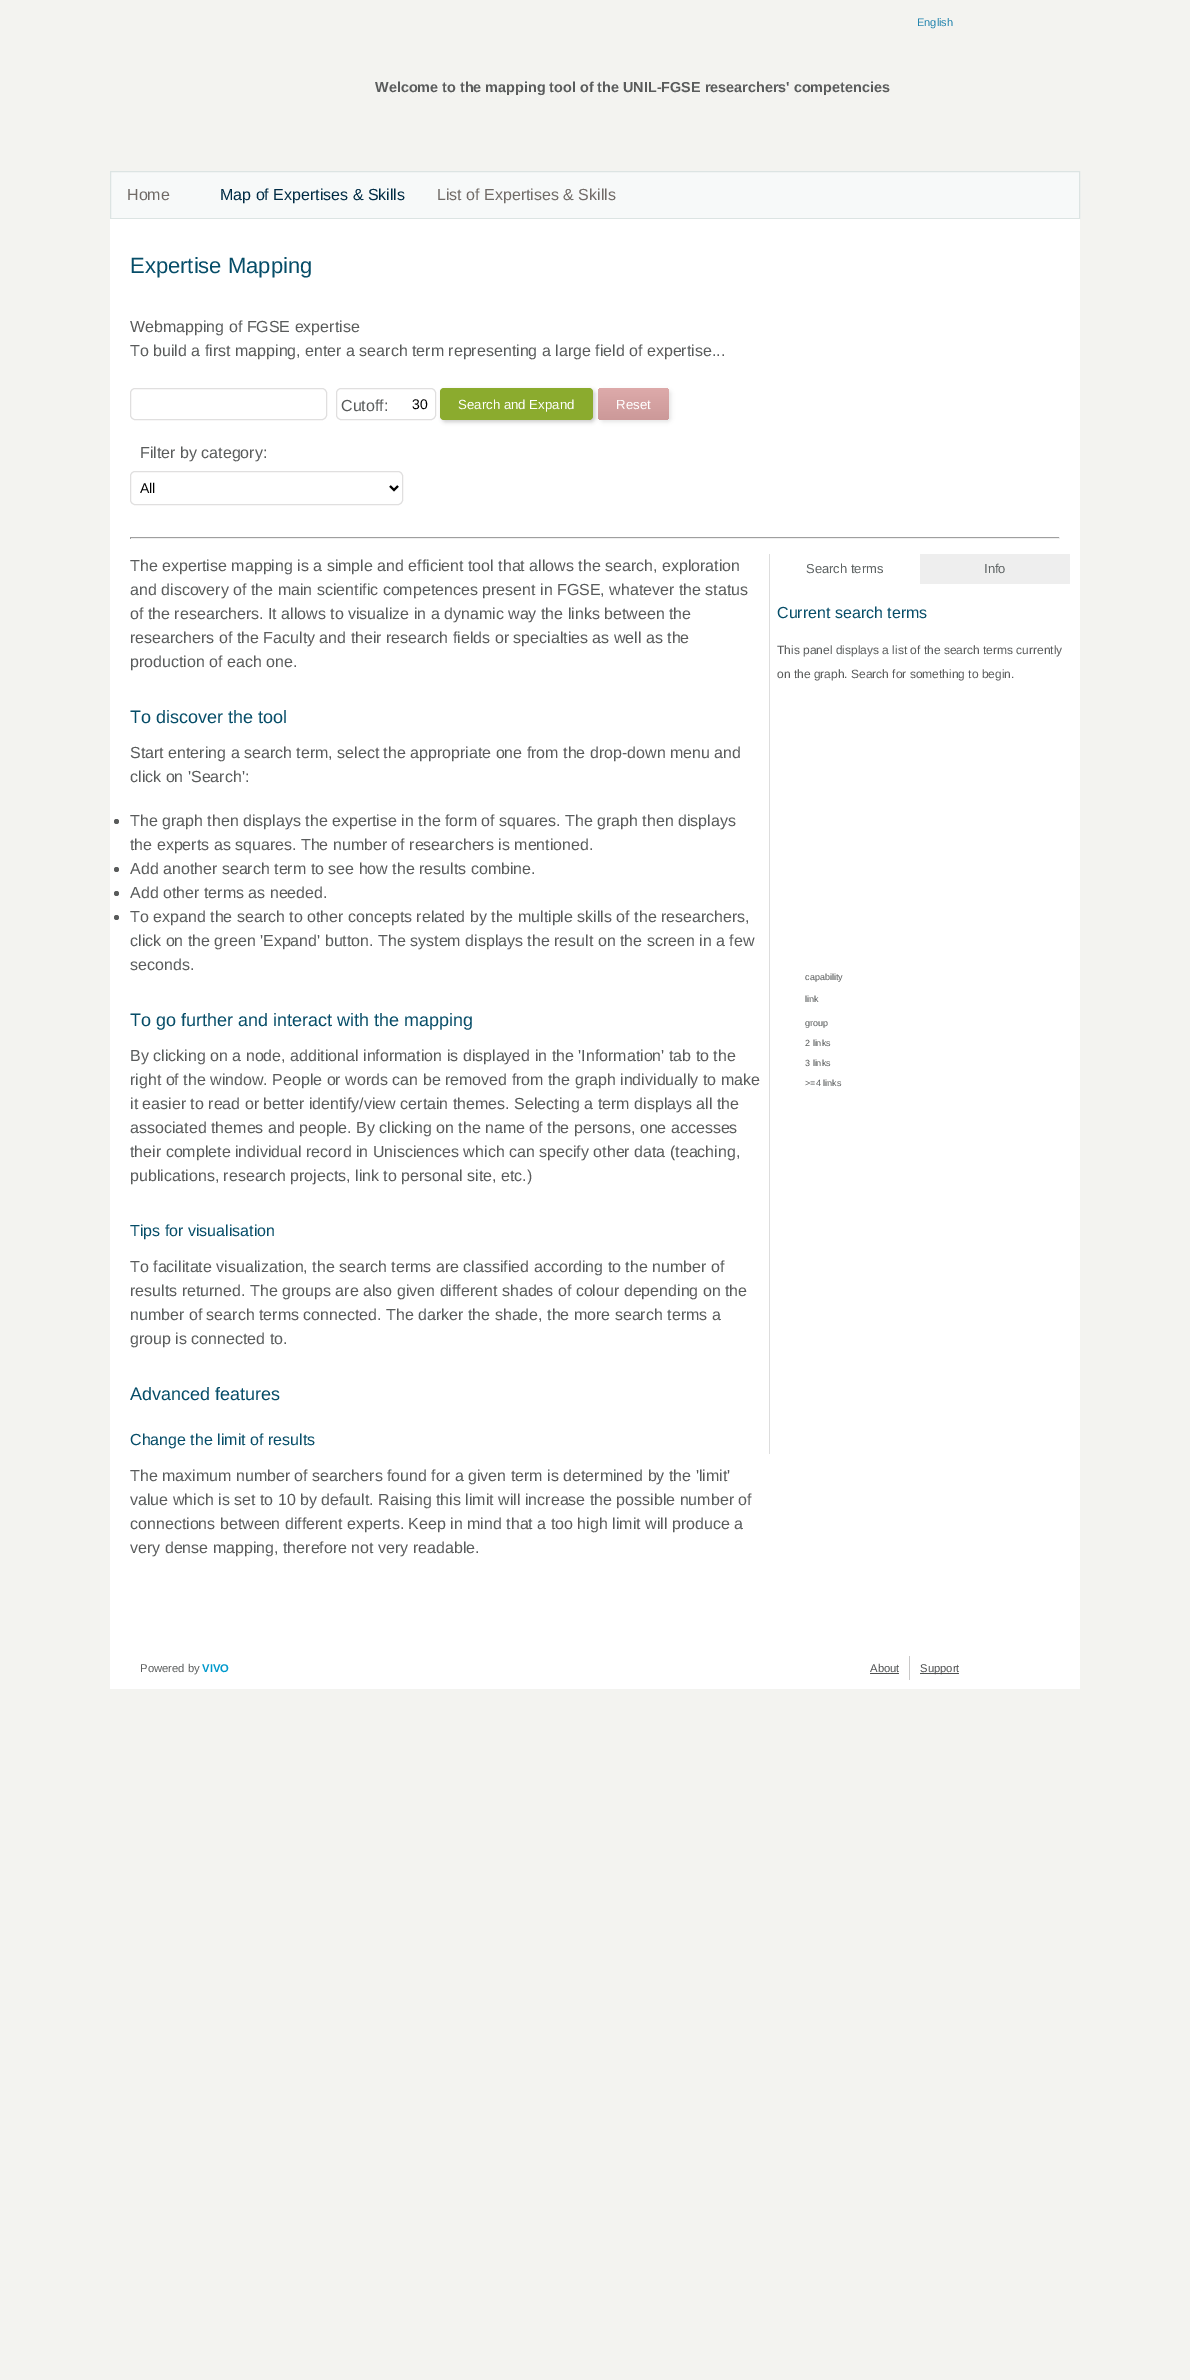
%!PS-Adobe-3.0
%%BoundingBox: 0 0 1190 2380
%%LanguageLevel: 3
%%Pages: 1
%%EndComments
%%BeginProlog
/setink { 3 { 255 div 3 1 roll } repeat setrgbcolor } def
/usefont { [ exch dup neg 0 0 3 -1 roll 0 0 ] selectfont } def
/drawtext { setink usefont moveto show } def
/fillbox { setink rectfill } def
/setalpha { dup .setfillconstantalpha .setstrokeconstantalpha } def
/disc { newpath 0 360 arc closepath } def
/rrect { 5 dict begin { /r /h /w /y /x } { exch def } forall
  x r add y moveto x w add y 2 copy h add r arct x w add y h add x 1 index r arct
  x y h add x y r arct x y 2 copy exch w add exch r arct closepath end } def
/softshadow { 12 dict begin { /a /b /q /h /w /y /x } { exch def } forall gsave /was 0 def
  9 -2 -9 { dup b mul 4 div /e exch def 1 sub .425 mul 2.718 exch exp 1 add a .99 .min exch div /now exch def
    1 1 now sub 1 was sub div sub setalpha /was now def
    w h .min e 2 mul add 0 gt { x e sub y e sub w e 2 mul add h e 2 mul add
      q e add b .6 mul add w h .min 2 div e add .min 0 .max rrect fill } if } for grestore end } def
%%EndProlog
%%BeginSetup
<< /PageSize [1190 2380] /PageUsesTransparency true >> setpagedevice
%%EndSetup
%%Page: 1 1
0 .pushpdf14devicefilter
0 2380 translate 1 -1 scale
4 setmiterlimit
0 0 1190 2380 243 243 240 fillbox
(English) 917 26 /LiberationSans-Regular 11 36 133 174 drawtext
(Welcome to the mapping tool of the UNIL-FGSE researchers' competencies) 375 92 /LiberationSans-Bold 14.4 89 91 91 drawtext
247 249 249 setink
110.5 171.5 moveto 1079.5 171.5 lineto 1079.5 218.5 lineto 110.5 218.5 lineto closepath gsave fill grestore
220 228 227 setink
stroke
(Home) 127 200 /LiberationSans-Regular 16 112 106 102 drawtext
(Map of Expertises & Skills) 220 200 /LiberationSans-Regular 16 0 43 68 drawtext
(List of Expertises & Skills) 437 200 /LiberationSans-Regular 16 112 106 102 drawtext
110 219 970 1470 255 255 255 fillbox
(Expertise Mapping) 130 273 /LiberationSans-Regular 22 6 77 104 drawtext
(Webmapping of FGSE expertise) 130 332 /LiberationSans-Regular 16 89 91 91 drawtext
(To build a first mapping, enter a search term representing a large field of expertise...) 130 356 /LiberationSans-Regular 16 89 91 91 drawtext
224 223 223 setink
130.5 388.5 196 31 4.5 rrect stroke
336.5 388.5 99 31 4.5 rrect stroke
(Cutoff:) 341 411 /LiberationSans-Regular 16 89 91 91 drawtext
(30) 412 409 /LiberationSans-Regular 14 0 0 0 drawtext
442 390 153 32 4 2 0.2 softshadow
139 171 46 setink
440 388 153 32 4 rrect fill
(Search and Expand) 458 409 /LiberationSans-Regular 13.25 255 255 255 drawtext
0 0 0 setink
600 390 71 32 4 2 0.1 softshadow
gsave 598 388 71 32 4 rrect clip newpath
<< /ShadingType 2 /ColorSpace /DeviceRGB /Coords [598 388 598 420] /Extend [true true] /Function << /FunctionType 2 /Domain [0 1] /C0 [0.867 0.667 0.667] /C1 [0.8 0.6 0.6] /N 1 >> >> shfill grestore
(Reset) 616 409 /LiberationSans-Regular 13.25 255 255 255 drawtext
(Filter by category:) 140 458 /LiberationSans-Regular 16 89 91 91 drawtext
224 223 223 setink
130.5 471.5 272 33 4.5 rrect stroke
0 0 0 setink
2 setlinewidth
390 486 moveto 394 490 lineto 398 486 lineto stroke
(All) 140 493 /LiberationSans-Regular 14 0 0 0 drawtext
130 538 930 1 239 239 239 fillbox
130 537 930 1 159 159 159 fillbox
1059 537 1 2 238 238 238 fillbox
130 537 1 2 159 159 159 fillbox
(The expertise mapping is a simple and efficient tool that allows the search, exploration) 130 571 /LiberationSans-Regular 16 89 91 91 drawtext
(and discovery of the main scientific competences present in FGSE, whatever the status) 130 595 /LiberationSans-Regular 16 89 91 91 drawtext
(of the researchers. It allows to visualize in a dynamic way the links between the) 130 619 /LiberationSans-Regular 16 89 91 91 drawtext
(researchers of the Faculty and their research fields or specialties as well as the) 130 643 /LiberationSans-Regular 16 89 91 91 drawtext
(production of each one.) 130 667 /LiberationSans-Regular 16 89 91 91 drawtext
(To discover the tool) 130 723 /LiberationSans-Regular 18 6 77 104 drawtext
(Start entering a search term, select the appropriate one from the drop-down menu and) 130 758 /LiberationSans-Regular 16 89 91 91 drawtext
(click on 'Search':) 130 782 /LiberationSans-Regular 16 89 91 91 drawtext
116.5 821.5 2.5 disc fill
(The graph then displays the expertise in the form of squares. The graph then displays) 130 826 /LiberationSans-Regular 16 89 91 91 drawtext
(the experts as squares. The number of researchers is mentioned.) 130 850 /LiberationSans-Regular 16 89 91 91 drawtext
116.5 869.5 2.5 disc fill
(Add another search term to see how the results combine.) 130 874 /LiberationSans-Regular 16 89 91 91 drawtext
116.5 893.5 2.5 disc fill
(Add other terms as needed.) 130 898 /LiberationSans-Regular 16 89 91 91 drawtext
116.5 917.5 2.5 disc fill
(To expand the search to other concepts related by the multiple skills of the researchers,) 130 922 /LiberationSans-Regular 16 89 91 91 drawtext
(click on the green 'Expand' button. The system displays the result on the screen in a few) 130 946 /LiberationSans-Regular 16 89 91 91 drawtext
(seconds.) 130 970 /LiberationSans-Regular 16 89 91 91 drawtext
(To go further and interact with the mapping) 130 1026 /LiberationSans-Regular 18 6 77 104 drawtext
(By clicking on a node, additional information is displayed in the 'Information' tab to the) 130 1061 /LiberationSans-Regular 16 89 91 91 drawtext
(right of the window. People or words can be removed from the graph individually to make) 130 1085 /LiberationSans-Regular 16 89 91 91 drawtext
(it easier to read or better identify/view certain themes. Selecting a term displays all the) 130 1109 /LiberationSans-Regular 16 89 91 91 drawtext
(associated themes and people. By clicking on the name of the persons, one accesses) 130 1133 /LiberationSans-Regular 16 89 91 91 drawtext
(their complete individual record in Unisciences which can specify other data \(teaching,) 130 1157 /LiberationSans-Regular 16 89 91 91 drawtext
(publications, research projects, link to personal site, etc.\)) 130 1181 /LiberationSans-Regular 16 89 91 91 drawtext
(Tips for visualisation) 130 1236 /LiberationSans-Regular 16 6 77 104 drawtext
(To facilitate visualization, the search terms are classified according to the number of) 130 1272 /LiberationSans-Regular 16 89 91 91 drawtext
(results returned. The groups are also given different shades of colour depending on the) 130 1296 /LiberationSans-Regular 16 89 91 91 drawtext
(number of search terms connected. The darker the shade, the more search terms a) 130 1320 /LiberationSans-Regular 16 89 91 91 drawtext
(group is connected to.) 130 1344 /LiberationSans-Regular 16 89 91 91 drawtext
(Advanced features) 130 1400 /LiberationSans-Regular 18 6 77 104 drawtext
(Change the limit of results) 130 1445 /LiberationSans-Regular 16 6 77 104 drawtext
(The maximum number of searchers found for a given term is determined by the 'limit') 130 1481 /LiberationSans-Regular 16 89 91 91 drawtext
(value which is set to 10 by default. Raising this limit will increase the possible number of) 130 1505 /LiberationSans-Regular 16 89 91 91 drawtext
(connections between different experts. Keep in mind that a too high limit will produce a) 130 1529 /LiberationSans-Regular 16 89 91 91 drawtext
(very dense mapping, therefore not very readable.) 130 1553 /LiberationSans-Regular 16 89 91 91 drawtext
769 554 1 900 221 221 221 fillbox
(Search terms) 806 573 /LiberationSans-Regular 13 94 99 99 drawtext
920 554 150 30 238 238 238 fillbox
(Info) 984 573 /LiberationSans-Regular 13 94 99 99 drawtext
(Current search terms) 777 618 /LiberationSans-Regular 16 6 77 104 drawtext
(This panel displays a list of the search terms currently) 777 654 /LiberationSans-Regular 12 89 91 91 drawtext
(on the graph. Search for something to begin.) 777 678 /LiberationSans-Regular 12 89 91 91 drawtext
(capability) 805 980 /LiberationSans-Regular 9 89 91 91 drawtext
(link) 805 1002 /LiberationSans-Regular 9 89 91 91 drawtext
(group) 805 1026 /LiberationSans-Regular 9 89 91 91 drawtext
(2 links) 805 1046 /LiberationSans-Regular 9 89 91 91 drawtext
(3 links) 805 1066 /LiberationSans-Regular 9 89 91 91 drawtext
(>=4 links) 805 1086 /LiberationSans-Regular 9 89 91 91 drawtext
(Powered by) 140 1672 /LiberationSans-Regular 11.25 89 91 91 drawtext
(VIVO) 202 1672 /LiberationSans-Bold 11.25 0 153 204 drawtext
909 1656 1 24 201 200 200 fillbox
(About) 870 1672 /LiberationSans-Regular 11.25 78 80 81 drawtext
870 1673 29 1 78 80 81 fillbox
920 1673 39 1 78 80 81 fillbox
(Support) 920 1672 /LiberationSans-Regular 11.25 78 80 81 drawtext
.poppdf14devicefilter showpage
%%EOF
